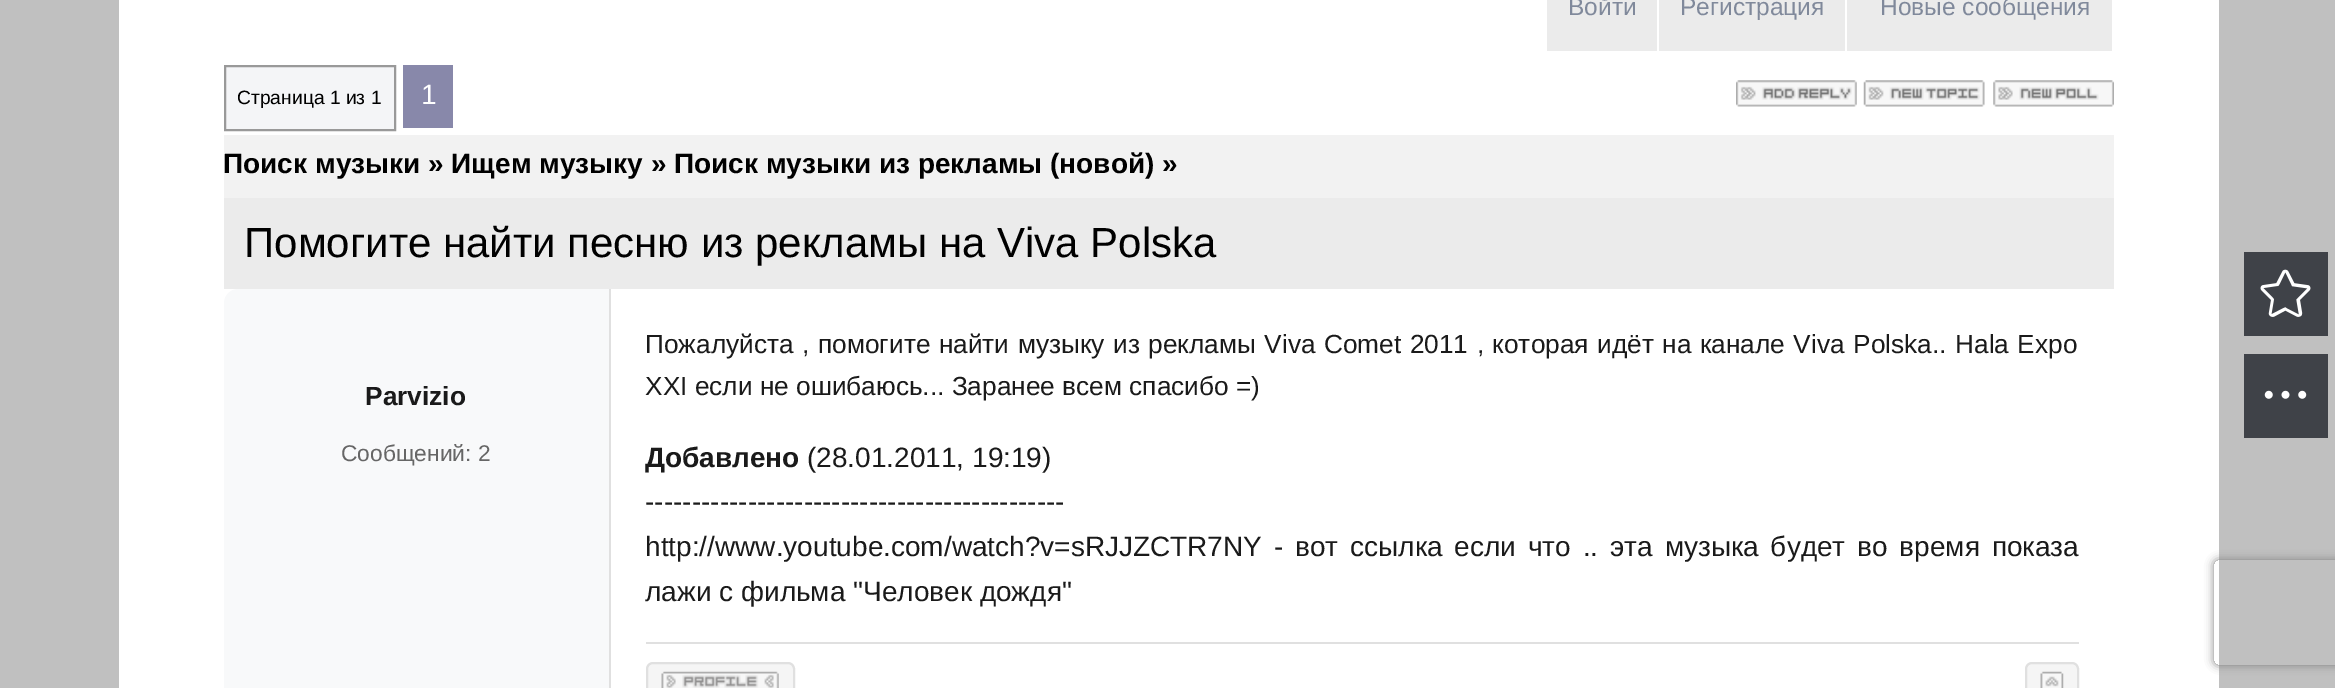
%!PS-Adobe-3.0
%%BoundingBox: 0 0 2335 688
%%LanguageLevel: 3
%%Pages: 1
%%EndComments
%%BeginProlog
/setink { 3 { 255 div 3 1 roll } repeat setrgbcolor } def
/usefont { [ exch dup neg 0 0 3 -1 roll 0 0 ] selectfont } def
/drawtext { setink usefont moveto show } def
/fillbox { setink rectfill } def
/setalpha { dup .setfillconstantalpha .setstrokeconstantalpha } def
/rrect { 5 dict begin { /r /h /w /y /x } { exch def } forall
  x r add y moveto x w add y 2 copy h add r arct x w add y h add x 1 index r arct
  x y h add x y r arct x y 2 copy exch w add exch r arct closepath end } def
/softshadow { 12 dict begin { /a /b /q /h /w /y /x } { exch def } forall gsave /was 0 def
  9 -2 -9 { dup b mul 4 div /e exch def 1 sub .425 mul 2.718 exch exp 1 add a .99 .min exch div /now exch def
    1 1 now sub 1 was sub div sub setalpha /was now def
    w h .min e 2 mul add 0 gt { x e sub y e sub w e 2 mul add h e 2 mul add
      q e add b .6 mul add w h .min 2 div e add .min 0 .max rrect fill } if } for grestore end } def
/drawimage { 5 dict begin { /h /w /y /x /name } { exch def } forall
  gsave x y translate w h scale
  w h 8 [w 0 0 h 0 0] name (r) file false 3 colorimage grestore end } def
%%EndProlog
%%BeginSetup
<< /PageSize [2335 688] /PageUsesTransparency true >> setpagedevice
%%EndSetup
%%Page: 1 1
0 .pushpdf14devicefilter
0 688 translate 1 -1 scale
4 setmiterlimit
0 0 2335 688 192 192 192 fillbox
119 0 2100 688 255 255 255 fillbox
1547 0 565 51 235 235 235 fillbox
1657 0 2 51 255 255 255 fillbox
(Войти) 1568 15 /LiberationSans-Regular 24.5 128 137 155 drawtext
1845 0 2 51 255 255 255 fillbox
(Регистрация) 1680 15 /LiberationSans-Regular 24.5 128 137 155 drawtext
(Новые сообщения) 1880 15 /LiberationSans-Regular 24.5 128 137 155 drawtext
244 245 247 setink
225 66 moveto 395 66 lineto 395 130 lineto 225 130 lineto closepath gsave fill grestore
153 153 153 setink
2 setlinewidth
stroke
(Страница 1 из 1) 237 104 /LiberationSans-Regular 19.25 0 0 0 drawtext
403 65 50 63 136 136 170 fillbox
(1) 421 104 /LiberationSans-Regular 28 255 255 255 drawtext
(assets/img1.rgb) 1736 80 121 27 drawimage
(assets/img2.rgb) 1863 80 122 27 drawimage
(assets/img3.rgb) 1993 80 121 27 drawimage
224 135 1890 63 242 242 242 fillbox
(Поиск музыки » Ищем музыку » Поиск музыки из рекламы \(новой\) ») 223 173 /LiberationSans-Bold 28 0 0 0 drawtext
224 198 1890 91 235 235 235 fillbox
(Помогите найти песню из рекламы на Viva Polska) 244 257 /LiberationSans-Regular 42 0 0 0 drawtext
248 249 250 setink
238 289 moveto 611 289 lineto 611 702 lineto 238 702 lineto 230.5 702 224 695.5 224 688 curveto 224 303 lineto 224 295.5 230.5 289 238 289 curveto closepath fill
609 289 2 399 224 224 224 fillbox
(Parvizio) 365 405 /LiberationSans-Bold 26.25 26 26 26 drawtext
(Сообщений: 2) 341 461 /LiberationSans-Regular 22.75 102 102 102 drawtext
/LiberationSans-Regular 26.25 usefont
26 26 26 setink
645 353 moveto 1.25 0 32 (Пожалуйста , помогите найти музыку из рекламы Viva Comet 2011 , которая идёт на канале Viva Polska.. Hala Expo) widthshow
(XXI если не ошибаюсь... Заранее всем спасибо =\)) 645 395 /LiberationSans-Regular 26.25 26 26 26 drawtext
(Добавлено) 645 467 /LiberationSans-Bold 28 26 26 26 drawtext
(\(28.01.2011, 19:19\)) 807 467 /LiberationSans-Regular 28 26 26 26 drawtext
(---------------------------------------------) 645 511 /LiberationSans-Regular 28 26 26 26 drawtext
645 556 moveto 4.1 0 32 (http://www.youtube.com/watch?v=sRJJZCTR7NY - вот ссылка если что .. эта музыка будет во время показа) widthshow
(лажи с фильма "Человек дождя") 645 601 /LiberationSans-Regular 28 26 26 26 drawtext
646 642 1433 2 224 224 224 fillbox
245 245 245 setink
647 663 147 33 6 rrect gsave fill grestore
224 224 224 setink
stroke
(assets/img4.rgb) 661 671 118 17 drawimage
245 245 245 setink
2026 663 52 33 6 rrect gsave fill grestore
224 224 224 setink
stroke
(assets/img5.rgb) 2040 671 24 17 drawimage
2244 252 84 84 63 66 72 fillbox
(assets/img6.rgb) 2260 269 51 48 drawimage
2244 354 84 84 63 66 72 fillbox
(assets/img7.rgb) 2264 390 43 9 drawimage
gsave
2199 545 moveto 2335 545 lineto 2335 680 lineto 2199 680 lineto closepath 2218 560 moveto 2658 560 lineto 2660 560 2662 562 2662 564 curveto 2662 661 lineto 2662 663 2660 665 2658 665 curveto 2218 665 lineto 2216 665 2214 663 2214 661 curveto 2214 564 lineto 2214 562 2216 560 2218 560 curveto closepath eoclip newpath
128 128 128 setink
2214 560 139 105 4 4.5 1 softshadow
grestore
.poppdf14devicefilter showpage
%%EOF
